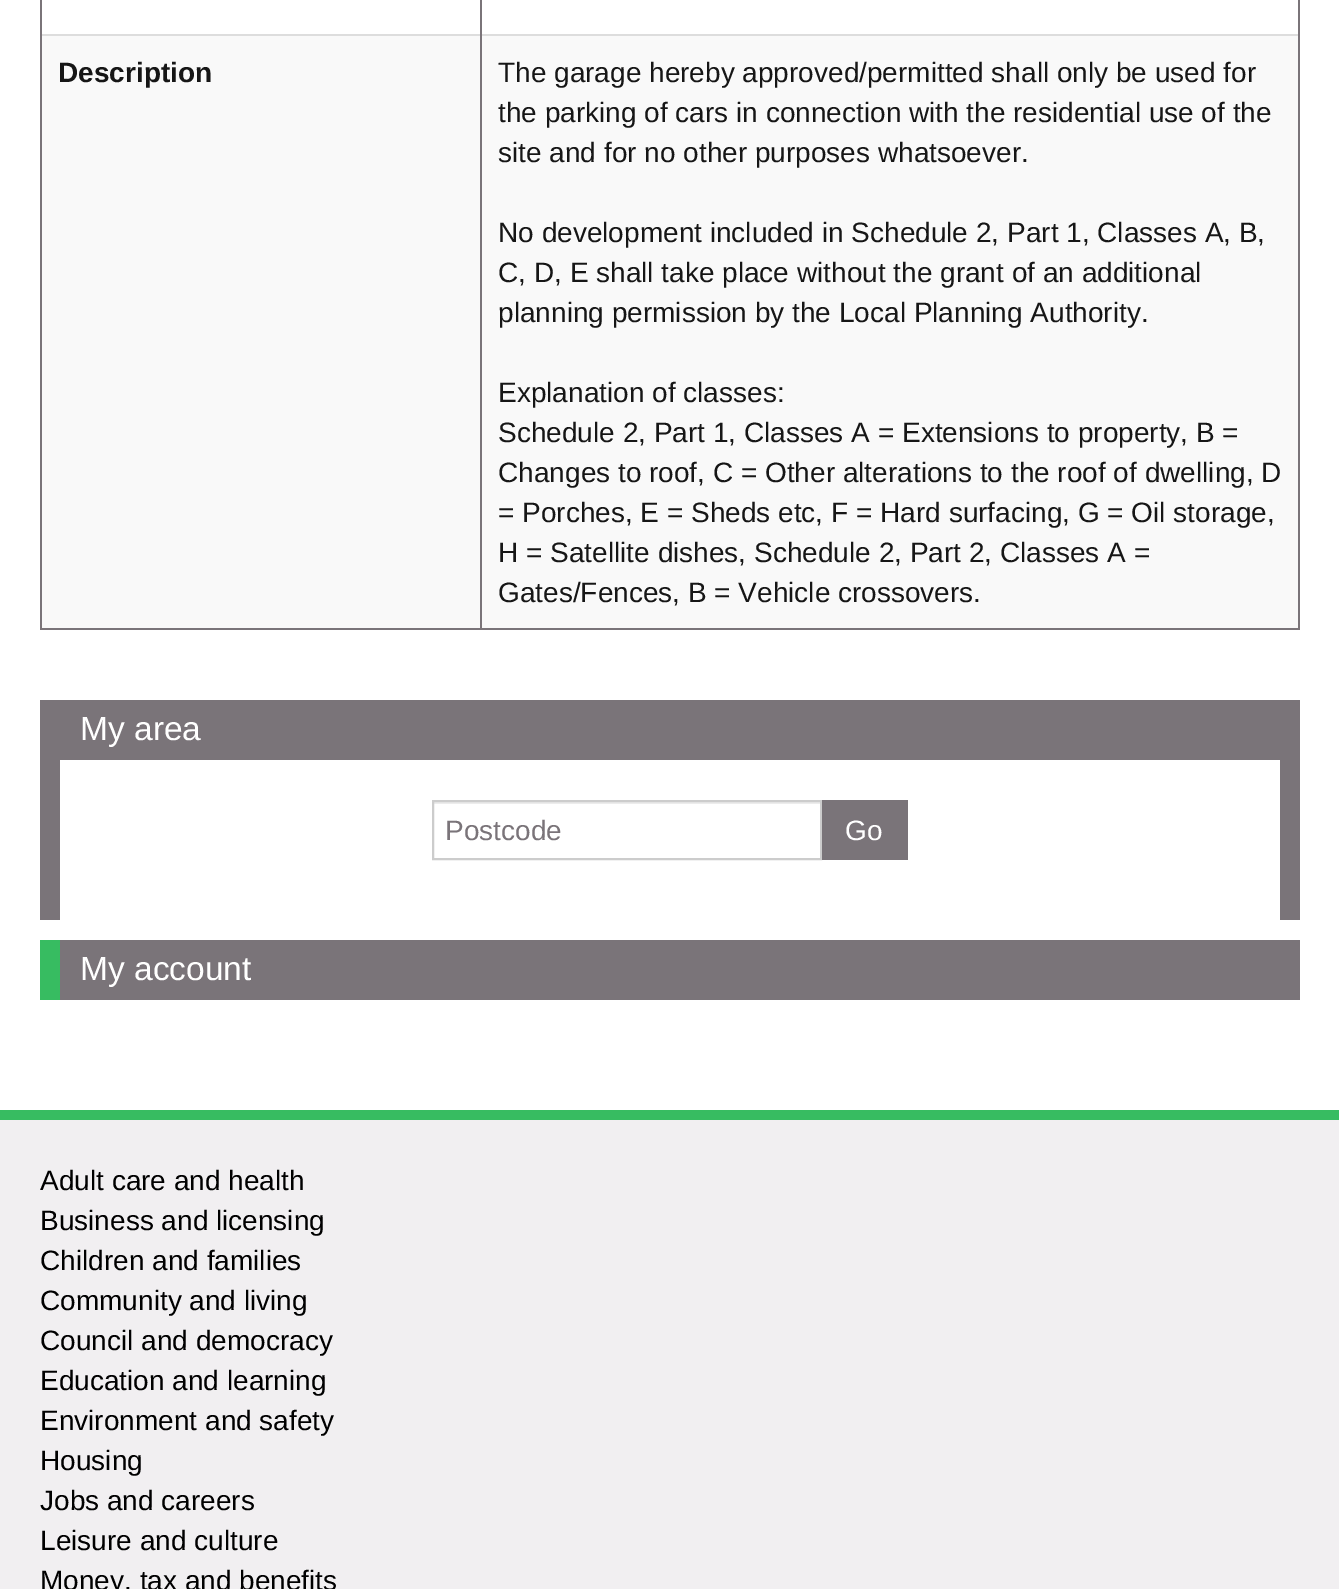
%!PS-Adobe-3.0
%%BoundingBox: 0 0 1339 1589
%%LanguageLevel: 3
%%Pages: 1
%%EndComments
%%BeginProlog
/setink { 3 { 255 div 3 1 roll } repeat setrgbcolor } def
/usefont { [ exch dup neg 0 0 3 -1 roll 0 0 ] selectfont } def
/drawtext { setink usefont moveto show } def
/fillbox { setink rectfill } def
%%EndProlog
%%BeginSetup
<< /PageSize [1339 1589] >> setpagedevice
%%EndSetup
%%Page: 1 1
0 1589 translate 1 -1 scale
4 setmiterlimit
0 0 1339 1589 255 255 255 fillbox
1298 0 2 630 122 116 121 fillbox
40 628 1260 2 122 116 121 fillbox
40 0 2 34 122 116 121 fillbox
480 0 2 34 122 116 121 fillbox
42 36 438 592 249 249 249 fillbox
40 34 1258 2 221 221 221 fillbox
40 34 2 594 122 116 121 fillbox
(Description) 58 82 /LiberationSans-Bold 28 22 22 22 drawtext
482 36 816 592 249 249 249 fillbox
480 34 2 594 122 116 121 fillbox
(The garage hereby approved/permitted shall only be used for) 498 82 /LiberationSans-Regular 28 22 22 22 drawtext
(the parking of cars in connection with the residential use of the) 498 122 /LiberationSans-Regular 28 22 22 22 drawtext
(site and for no other purposes whatsoever.) 498 162 /LiberationSans-Regular 28 22 22 22 drawtext
(No development included in Schedule 2, Part 1, Classes A, B,) 498 242 /LiberationSans-Regular 28 22 22 22 drawtext
(C, D, E shall take place without the grant of an additional) 498 282 /LiberationSans-Regular 28 22 22 22 drawtext
(planning permission by the Local Planning Authority.) 498 322 /LiberationSans-Regular 28 22 22 22 drawtext
(Explanation of classes:) 498 402 /LiberationSans-Regular 28 22 22 22 drawtext
(Schedule 2, Part 1, Classes A = Extensions to property, B =) 498 442 /LiberationSans-Regular 28 22 22 22 drawtext
(Changes to roof, C = Other alterations to the roof of dwelling, D) 498 482 /LiberationSans-Regular 28 22 22 22 drawtext
(= Porches, E = Sheds etc, F = Hard surfacing, G = Oil storage,) 498 522 /LiberationSans-Regular 28 22 22 22 drawtext
(H = Satellite dishes, Schedule 2, Part 2, Classes A =) 498 562 /LiberationSans-Regular 28 22 22 22 drawtext
(Gates/Fences, B = Vehicle crossovers.) 498 602 /LiberationSans-Regular 28 22 22 22 drawtext
1280 700 20 220 122 116 121 fillbox
40 700 20 220 122 116 121 fillbox
60 700 1220 60 122 116 121 fillbox
(My area) 80 740 /LiberationSans-Regular 33.5 255 255 255 drawtext
434 802 386 2 236 236 236 fillbox
204 204 204 setink
2 setlinewidth
433 801 388 58 rectstroke
(Postcode) 445 840 /LiberationSans-Regular 28 122 116 121 drawtext
822 800 86 60 122 116 121 fillbox
(Go) 845 840 /LiberationSans-Regular 28 255 255 255 drawtext
60 940 1240 60 122 116 121 fillbox
40 940 20 60 55 188 97 fillbox
(My account) 80 980 /LiberationSans-Regular 33.5 255 255 255 drawtext
0 1120 1339 469 241 239 241 fillbox
0 1110 1339 10 55 188 97 fillbox
(Adult care and health) 40 1190 /LiberationSans-Regular 28 0 0 0 drawtext
(Business and licensing) 40 1230 /LiberationSans-Regular 28 0 0 0 drawtext
(Children and families) 40 1270 /LiberationSans-Regular 28 0 0 0 drawtext
(Community and living) 40 1310 /LiberationSans-Regular 28 0 0 0 drawtext
(Council and democracy) 40 1350 /LiberationSans-Regular 28 0 0 0 drawtext
(Education and learning) 40 1390 /LiberationSans-Regular 28 0 0 0 drawtext
(Environment and safety) 40 1430 /LiberationSans-Regular 28 0 0 0 drawtext
(Housing) 40 1470 /LiberationSans-Regular 28 0 0 0 drawtext
(Jobs and careers) 40 1510 /LiberationSans-Regular 28 0 0 0 drawtext
(Leisure and culture) 40 1550 /LiberationSans-Regular 28 0 0 0 drawtext
(Money, tax and benefits) 40 1590 /LiberationSans-Regular 28 0 0 0 drawtext
showpage
%%EOF
